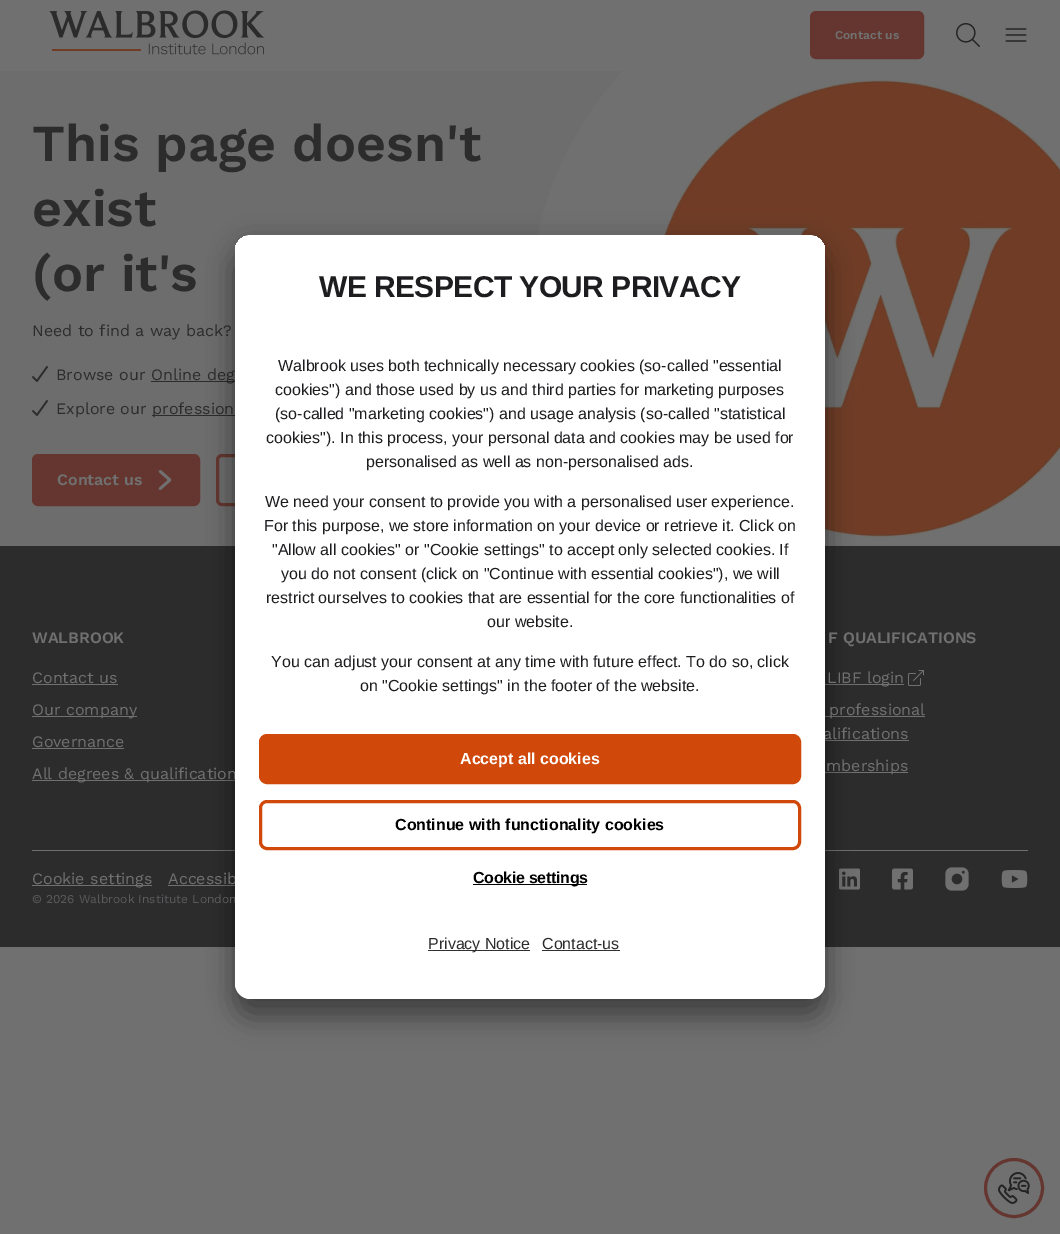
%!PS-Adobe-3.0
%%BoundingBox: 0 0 1060 1234
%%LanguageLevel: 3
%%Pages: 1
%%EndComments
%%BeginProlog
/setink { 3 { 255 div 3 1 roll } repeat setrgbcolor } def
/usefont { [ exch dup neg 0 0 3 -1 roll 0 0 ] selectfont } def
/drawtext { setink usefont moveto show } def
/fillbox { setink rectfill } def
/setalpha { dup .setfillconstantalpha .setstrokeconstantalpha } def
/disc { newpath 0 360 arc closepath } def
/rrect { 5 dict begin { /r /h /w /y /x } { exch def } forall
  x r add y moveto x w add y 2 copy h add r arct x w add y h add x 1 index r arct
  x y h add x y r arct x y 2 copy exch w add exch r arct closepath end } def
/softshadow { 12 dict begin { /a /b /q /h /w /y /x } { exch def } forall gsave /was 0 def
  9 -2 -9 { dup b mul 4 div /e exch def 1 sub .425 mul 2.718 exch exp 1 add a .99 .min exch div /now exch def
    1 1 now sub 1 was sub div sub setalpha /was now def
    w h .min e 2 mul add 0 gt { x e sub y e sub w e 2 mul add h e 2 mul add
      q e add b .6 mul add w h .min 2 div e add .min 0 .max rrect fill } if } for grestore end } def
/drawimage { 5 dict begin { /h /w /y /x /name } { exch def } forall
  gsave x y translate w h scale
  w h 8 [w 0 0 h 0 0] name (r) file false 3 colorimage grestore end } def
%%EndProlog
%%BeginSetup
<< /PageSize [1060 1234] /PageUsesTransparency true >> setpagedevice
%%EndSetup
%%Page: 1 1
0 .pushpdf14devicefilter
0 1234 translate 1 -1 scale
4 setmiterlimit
0 0 1060 1234 112 112 112 fillbox
(assets/img1.rgb) 49 10 216 45 drawimage
100 54 47 setink
811.5 12.5 111 45 4.5 rrect gsave fill grestore
3 setlinewidth
stroke
(Contact us) 835 39 /WorkSans-SemiBold 12 112 112 112 drawtext
(assets/img2.rgb) 956 23 24 24 drawimage
(assets/img3.rgb) 1005 28 22 14 drawimage
0 71 1060 475 109 109 109 fillbox
(This page doesn't) 32 161 /WorkSans-SemiBold 52 44 44 45 drawtext
(exist) 32 226 /WorkSans-SemiBold 52 44 44 45 drawtext
(\(or it's) 32 291 /WorkSans-SemiBold 52 44 44 45 drawtext
(Need to find a way back?) 32 336 /WorkSans-Regular 16 44 44 45 drawtext
(assets/img4.rgb) 32 366 16 16 drawimage
(Browse our) 56 380 /WorkSans-Regular 16 44 44 45 drawtext
151 381 84 1 44 44 45 fillbox
(Online deg) 151 380 /WorkSans-Regular 16 44 44 45 drawtext
(assets/img4.rgb) 32 400 16 16 drawimage
(Explore our) 56 414 /WorkSans-Regular 16 44 44 45 drawtext
152 415 83 1 44 44 45 fillbox
(profession) 152 414 /WorkSans-Regular 16 44 44 45 drawtext
100 54 47 setink
33.5 455.5 165 49 4.5 rrect gsave fill grestore
stroke
(Contact us) 57 485 /WorkSans-SemiBold 16 112 112 112 drawtext
(assets/img5.rgb) 158 470 14 20 drawimage
100 54 47 setink
217.5 455.5 207 49 4.5 rrect stroke
(assets/img6.rgb) 537 71 523 475 drawimage
0 546 1060 401 44 44 45 fillbox
32 850 996 1 112 112 112 fillbox
32 780 203 1 112 112 112 fillbox
825 684 79 1 112 112 112 fillbox
825 716 100 1 112 112 112 fillbox
825 740 84 1 112 112 112 fillbox
825 772 83 1 112 112 112 fillbox
168 885 67 1 112 112 112 fillbox
(assets/img8.rgb) 839 868 21 22 drawimage
0 0 0 setink
235 255 590 764 16 14 0.3 softshadow
235 240 590 764 16 13 0.22 softshadow
(All degrees & qualification) 32 779 /WorkSans-Regular 16 112 112 112 drawtext
(alifications) 823 739 /WorkSans-Regular 16 112 112 112 drawtext
(Accessib) 168 884 /WorkSans-Regular 16 112 112 112 drawtext
(© 2026 Walbrook Institute London) 32 903 /WorkSans-Regular 12 91 91 93 drawtext
255 255 255 setink
235 235 590 764 16 rrect fill
gsave
235 235 590 764 16 rrect clip newpath
251 235 moveto 809 235 lineto 818 235 825 242 825 251 curveto 825 718 lineto 235 718 lineto 235 251 lineto 235 242 242 235 251 235 curveto closepath clip newpath
235 236 590 482 255 255 255 fillbox
grestore
/LiberationSans-Bold 30 usefont
29 29 31 setink
319 297 moveto -0.6 0 (WE RESPECT YOUR PRIVACY) ashow
(Walbrook uses both technically necessary cookies \(so-called "essential) 278 371 /LiberationSans-Regular 16 29 29 31 drawtext
(cookies"\) and those used by us and third parties for marketing purposes) 275 395 /LiberationSans-Regular 16 29 29 31 drawtext
(\(so-called "marketing cookies"\) and usage analysis \(so-called "statistical) 275 419 /LiberationSans-Regular 16 29 29 31 drawtext
(cookies"\). In this process, your personal data and cookies may be used for) 266 443 /LiberationSans-Regular 16 29 29 31 drawtext
(personalised as well as non-personalised ads.) 366 467 /LiberationSans-Regular 16 29 29 31 drawtext
(We need your consent to provide you with a personalised user experience.) 265 507 /LiberationSans-Regular 16 29 29 31 drawtext
(For this purpose, we store information on your device or retrieve it. Click on) 264 531 /LiberationSans-Regular 16 29 29 31 drawtext
("Allow all cookies" or "Cookie settings" to accept only selected cookies. If) 272 555 /LiberationSans-Regular 16 29 29 31 drawtext
(you do not consent \(click on "Continue with essential cookies"\), we will) 281 579 /LiberationSans-Regular 16 29 29 31 drawtext
(restrict ourselves to cookies that are essential for the core functionalities of) 266 603 /LiberationSans-Regular 16 29 29 31 drawtext
(our website.) 487 627 /LiberationSans-Regular 16 29 29 31 drawtext
(You can adjust your consent at any time with future effect. To do so, click) 271 667 /LiberationSans-Regular 16 29 29 31 drawtext
(on "Cookie settings" in the footer of the website.) 360 691 /LiberationSans-Regular 16 29 29 31 drawtext
255 255 255 setink
235 718 moveto 825 718 lineto 825 983 lineto 825 992 818 999 809 999 curveto 251 999 lineto 242 999 235 992 235 983 curveto closepath fill
209 73 10 setink
260.5 735.5 539 47 6.5 rrect gsave fill grestore
stroke
(Accept all cookies) 460 764 /LiberationSans-Bold 16 255 255 255 drawtext
209 73 10 setink
260.5 801.5 539 47 6.5 rrect stroke
(Continue with functionality cookies) 395 830 /LiberationSans-Bold 16 0 0 0 drawtext
473 884 114 1 0 0 0 fillbox
473 883 moveto -0.3 0 (Cookie settings) ashow
428 950 102 1 48 48 48 fillbox
(Privacy Notice) 428 949 /LiberationSans-Regular 16 44 44 45 drawtext
(Contact-us) 542 949 /LiberationSans-Regular 16 44 44 45 drawtext
542 950 78 1 48 48 48 fillbox
(WALBROOK) 32 643 /WorkSans-SemiBold 16 112 112 112 drawtext
(Contact us) 32 683 /WorkSans-Regular 16 112 112 112 drawtext
32 684 86 1 112 112 112 fillbox
32 716 105 1 112 112 112 fillbox
(Our company) 32 715 /WorkSans-Regular 16 112 112 112 drawtext
(Governance) 32 747 /WorkSans-Regular 16 112 112 112 drawtext
32 748 92 1 112 112 112 fillbox
(F QUALIFICATIONS) 828 643 /WorkSans-SemiBold 16 112 112 112 drawtext
(LIBF login) 827 683 /WorkSans-Regular 16 112 112 112 drawtext
(assets/img7.rgb) 908 670 16 16 drawimage
(professional) 829 715 /WorkSans-Regular 16 112 112 112 drawtext
(mberships) 826 771 /WorkSans-Regular 16 112 112 112 drawtext
32 885 120 1 112 112 112 fillbox
(Cookie settings) 32 884 /WorkSans-Regular 16 112 112 112 drawtext
(assets/img9.rgb) 892 868 21 22 drawimage
(assets/img10.rgb) 945 867 24 24 drawimage
(assets/img11.rgb) 1001 870 27 18 drawimage
100 54 47 setink
1014 1188 28.5 disc stroke
(assets/img12.rgb) 998 1172 32 32 drawimage
.poppdf14devicefilter showpage
%%EOF
